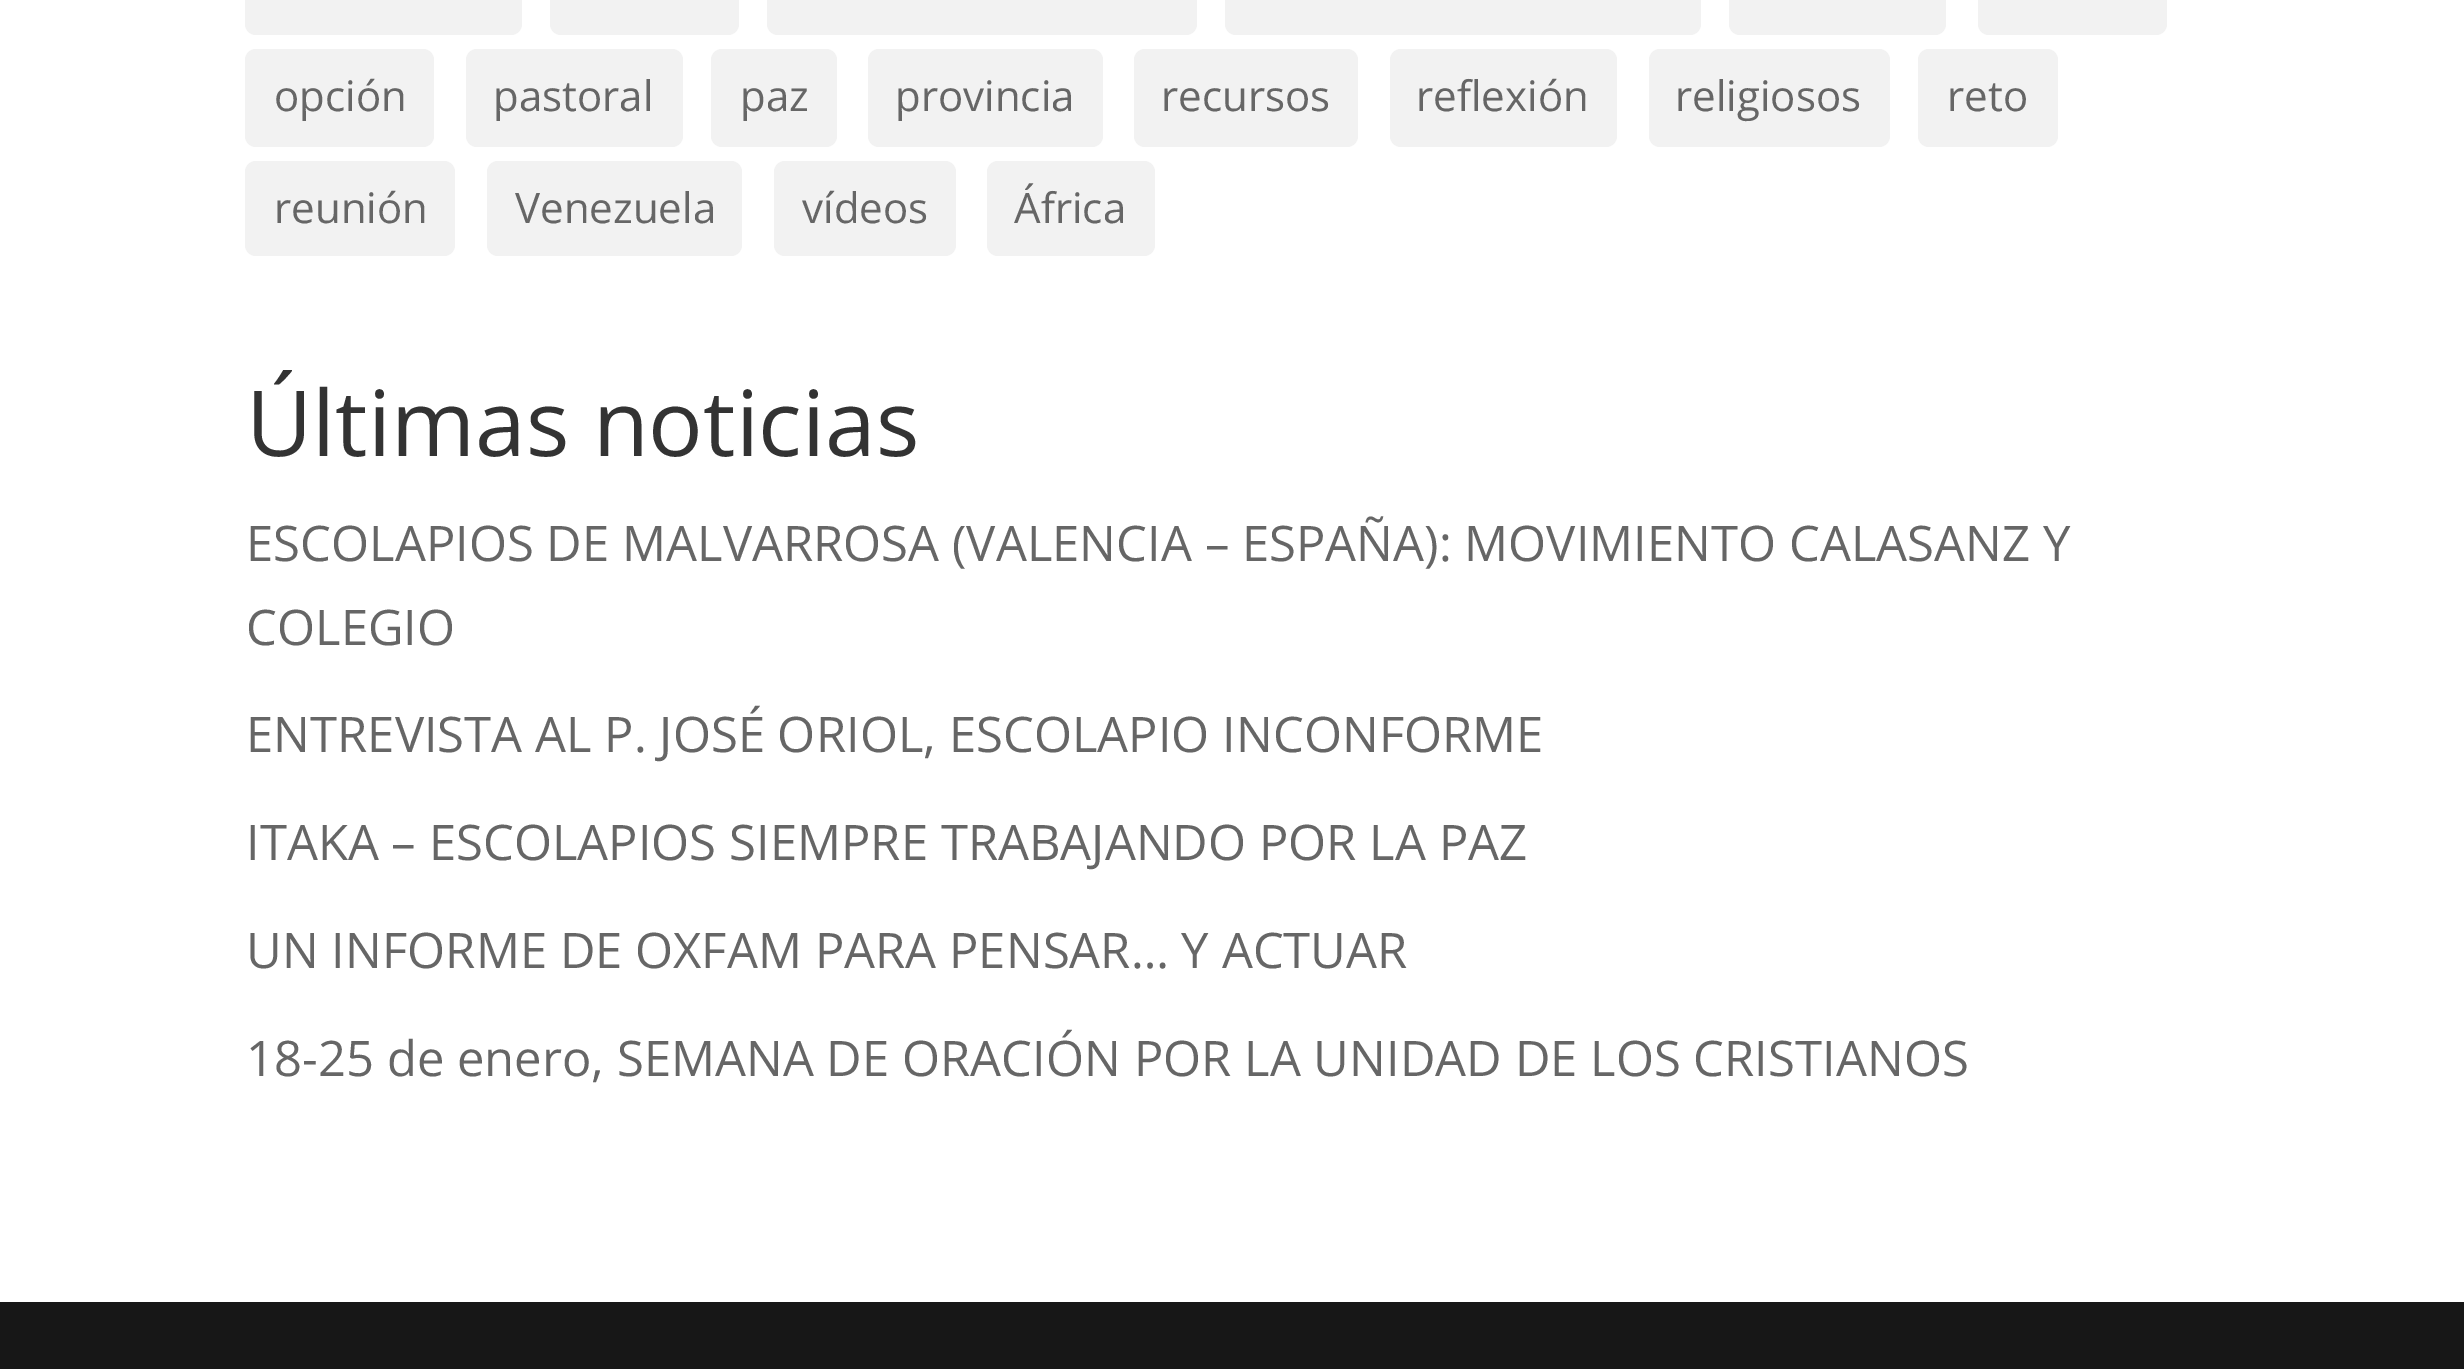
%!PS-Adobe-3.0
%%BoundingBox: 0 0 2464 1369
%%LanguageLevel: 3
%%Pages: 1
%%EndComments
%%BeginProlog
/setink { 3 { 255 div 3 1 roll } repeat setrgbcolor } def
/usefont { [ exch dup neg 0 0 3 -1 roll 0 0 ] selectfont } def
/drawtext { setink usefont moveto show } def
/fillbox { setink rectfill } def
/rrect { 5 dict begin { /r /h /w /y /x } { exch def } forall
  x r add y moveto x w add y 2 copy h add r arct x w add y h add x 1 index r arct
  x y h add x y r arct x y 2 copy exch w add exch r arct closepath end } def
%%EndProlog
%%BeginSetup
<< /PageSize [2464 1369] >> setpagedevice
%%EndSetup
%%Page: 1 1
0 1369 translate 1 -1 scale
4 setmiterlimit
0 0 2464 1369 255 255 255 fillbox
242 242 242 setink
245 -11 277 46 11 rrect fill
550 -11 189 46 11 rrect fill
767 -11 430 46 11 rrect fill
1225 -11 476 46 11 rrect fill
1729 -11 217 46 11 rrect fill
1978 -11 189 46 11 rrect fill
245 49 189 98 11 rrect fill
(opción) 274 111 /OpenSans-Regular 42 102 102 102 drawtext
242 242 242 setink
466 49 217 98 11 rrect fill
(pastoral) 493 111 /OpenSans-Regular 42 102 102 102 drawtext
242 242 242 setink
711 49 126 98 11 rrect fill
(paz) 740 111 /OpenSans-Regular 42 102 102 102 drawtext
242 242 242 setink
868 49 235 98 11 rrect fill
(provincia) 895 111 /OpenSans-Regular 42 102 102 102 drawtext
242 242 242 setink
1134 49 224 98 11 rrect fill
(recursos) 1161 111 /OpenSans-Regular 42 102 102 102 drawtext
242 242 242 setink
1390 49 227 98 11 rrect fill
(reflexión) 1416 111 /OpenSans-Regular 42 102 102 102 drawtext
242 242 242 setink
1649 49 241 98 11 rrect fill
(religiosos) 1675 111 /OpenSans-Regular 42 102 102 102 drawtext
242 242 242 setink
1918 49 140 98 11 rrect fill
(reto) 1947 111 /OpenSans-Regular 42 102 102 102 drawtext
242 242 242 setink
245 161 210 95 11 rrect fill
(reunión) 274 223 /OpenSans-Regular 42 102 102 102 drawtext
242 242 242 setink
487 161 255 95 11 rrect fill
(Venezuela) 515 223 /OpenSans-Regular 42 102 102 102 drawtext
242 242 242 setink
774 161 182 95 11 rrect fill
(vídeos) 802 223 /OpenSans-Regular 42 102 102 102 drawtext
242 242 242 setink
987 161 168 95 11 rrect fill
(África) 1014 223 /OpenSans-Regular 42 102 102 102 drawtext
(Últimas noticias) 246 456 /OpenSans-Regular 91 51 51 51 drawtext
(ESCOLAPIOS DE MALVARROSA \(VALENCIA – ESPAÑA\): MOVIMIENTO CALASANZ Y) 246 561 /OpenSans-Regular 49 102 102 102 drawtext
(COLEGIO) 246 645 /OpenSans-Regular 49 102 102 102 drawtext
(ENTREVISTA AL P. JOSÉ ORIOL, ESCOLAPIO INCONFORME) 246 752 /OpenSans-Regular 49 102 102 102 drawtext
(ITAKA – ESCOLAPIOS SIEMPRE TRABAJANDO POR LA PAZ) 246 860 /OpenSans-Regular 49 102 102 102 drawtext
(UN INFORME DE OXFAM PARA PENSAR… Y ACTUAR) 246 968 /OpenSans-Regular 49 102 102 102 drawtext
(18-25 de enero, SEMANA DE ORACIÓN POR LA UNIDAD DE LOS CRISTIANOS) 246 1076 /OpenSans-Regular 49 102 102 102 drawtext
0 1302 2464 67 23 23 23 fillbox
showpage
%%EOF
